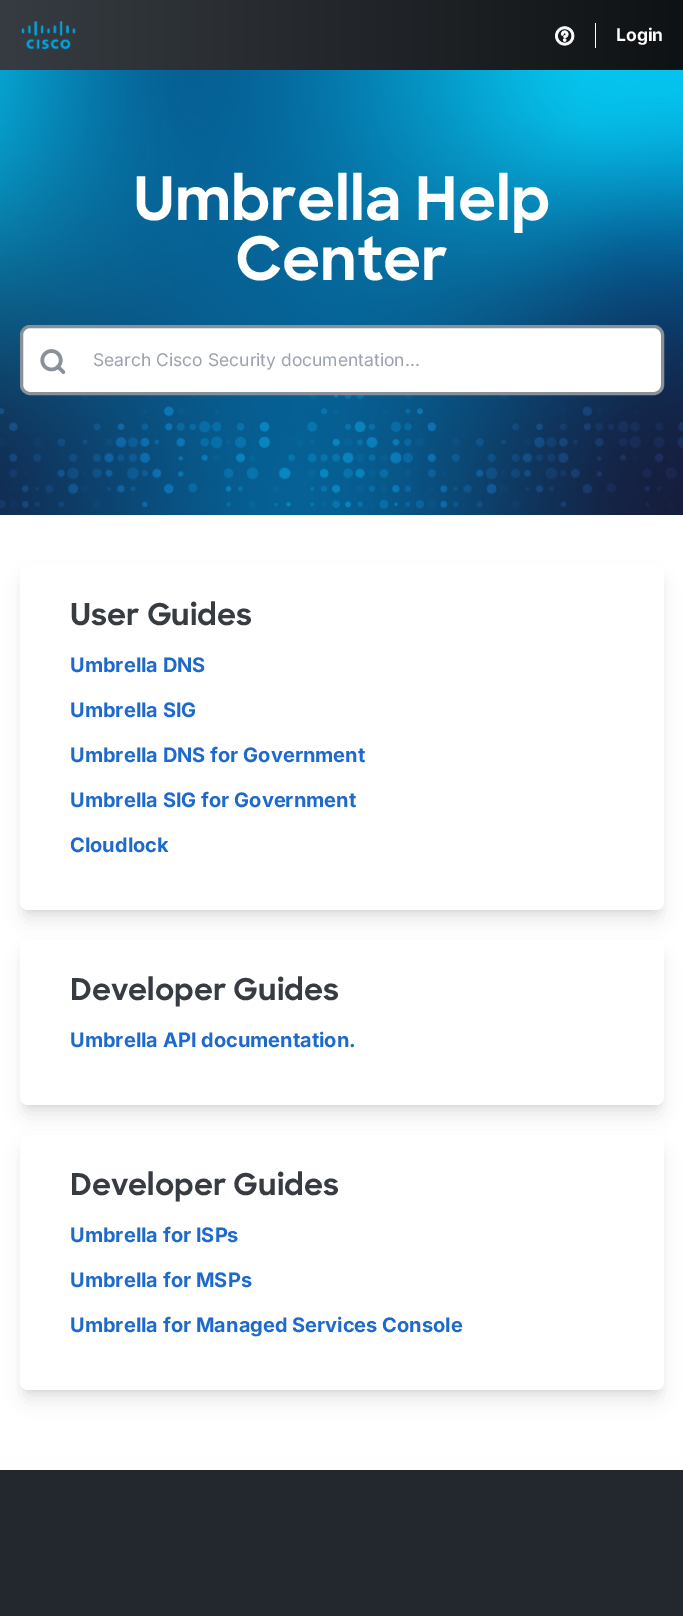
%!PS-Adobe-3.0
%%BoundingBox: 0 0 683 1616
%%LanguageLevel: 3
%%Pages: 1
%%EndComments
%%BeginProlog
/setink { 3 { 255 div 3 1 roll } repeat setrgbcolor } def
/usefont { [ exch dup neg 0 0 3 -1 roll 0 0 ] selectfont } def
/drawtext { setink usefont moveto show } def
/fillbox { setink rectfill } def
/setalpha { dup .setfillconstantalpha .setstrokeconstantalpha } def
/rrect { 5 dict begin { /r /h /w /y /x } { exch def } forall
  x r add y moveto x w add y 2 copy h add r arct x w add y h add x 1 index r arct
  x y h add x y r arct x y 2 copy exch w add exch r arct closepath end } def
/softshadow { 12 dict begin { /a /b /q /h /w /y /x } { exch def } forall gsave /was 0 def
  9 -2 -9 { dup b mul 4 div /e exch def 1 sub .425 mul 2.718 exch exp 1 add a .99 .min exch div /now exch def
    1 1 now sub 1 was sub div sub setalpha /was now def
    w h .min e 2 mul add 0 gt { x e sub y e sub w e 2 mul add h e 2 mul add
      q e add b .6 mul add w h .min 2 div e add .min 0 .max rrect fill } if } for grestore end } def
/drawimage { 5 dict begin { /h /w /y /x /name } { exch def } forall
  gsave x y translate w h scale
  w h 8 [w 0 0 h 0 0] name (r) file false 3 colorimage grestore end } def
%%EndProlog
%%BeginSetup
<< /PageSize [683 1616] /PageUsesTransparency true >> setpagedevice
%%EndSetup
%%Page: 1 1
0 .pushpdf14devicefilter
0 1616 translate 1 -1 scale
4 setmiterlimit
0 0 683 1616 255 255 255 fillbox
gsave 0 0 moveto 683 0 lineto 683 70 lineto 0 70 lineto closepath clip newpath
<< /ShadingType 2 /ColorSpace /DeviceRGB /Coords [0 35 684 35] /Extend [true true] /Function << /FunctionType 2 /Domain [0 1] /C0 [0.216 0.235 0.259] /C1 [0.059 0.071 0.078] /N 1 >> >> shfill grestore
(assets/img1.rgb) 21 21 55 29 drawimage
(assets/img2.rgb) 555 26 20 20 drawimage
595 23 1 25 255 255 255 fillbox
(Login) 616 41 /Inter-Bold 17.5 255 255 255 drawtext
(assets/img3.rgb) 0 70 683 445 drawimage
(Umbrella Help) 133 220 /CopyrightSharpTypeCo-Bold 60 255 255 255 drawtext
(Center) 235 280 /CopyrightSharpTypeCo-Bold 60 255 255 255 drawtext
21.5 326.5 641 67 8.5 rrect gsave fill grestore
136 144 153 setink
3 setlinewidth
stroke
(assets/img4.rgb) 40 349 26 25 drawimage
(Search Cisco Security documentation...) 93 366 /Inter-Regular 17.5 156 163 175 drawtext
0 0 0 setink
25 575 634 335 2.5 4 0.1 softshadow
24 581 636 338 4 9.5 0.1 softshadow
255 255 255 setink
20 565 644 345 8 rrect fill
(User Guides) 70 625 /CopyrightSharpTypeCo-Bold 30 55 60 66 drawtext
(Umbrella DNS) 70 672 /Inter-Bold 20 29 105 204 drawtext
(Umbrella SIG) 70 717 /Inter-Bold 20 29 105 204 drawtext
(Umbrella DNS for Government) 70 762 /Inter-Bold 20 29 105 204 drawtext
(Umbrella SIG for Government) 70 807 /Inter-Bold 20 29 105 204 drawtext
(Cloudlock) 70 852 /Inter-Bold 20 29 105 204 drawtext
0 0 0 setink
25 950 634 155 2.5 4 0.1 softshadow
24 956 636 158 4 9.5 0.1 softshadow
255 255 255 setink
20 940 644 165 8 rrect fill
(Developer Guides) 70 1000 /CopyrightSharpTypeCo-Bold 30 55 60 66 drawtext
(Umbrella API documentation.) 70 1047 /Inter-Bold 20 29 105 204 drawtext
0 0 0 setink
25 1145 634 245 2.5 4 0.1 softshadow
24 1151 636 248 4 9.5 0.1 softshadow
255 255 255 setink
20 1135 644 255 8 rrect fill
(Developer Guides) 70 1195 /CopyrightSharpTypeCo-Bold 30 55 60 66 drawtext
(Umbrella for ISPs) 70 1242 /Inter-Bold 20 29 105 204 drawtext
(Umbrella for MSPs) 70 1287 /Inter-Bold 20 29 105 204 drawtext
(Umbrella for Managed Services Console) 70 1332 /Inter-Bold 20 29 105 204 drawtext
0 1470 683 146 35 40 46 fillbox
.poppdf14devicefilter showpage
%%EOF
